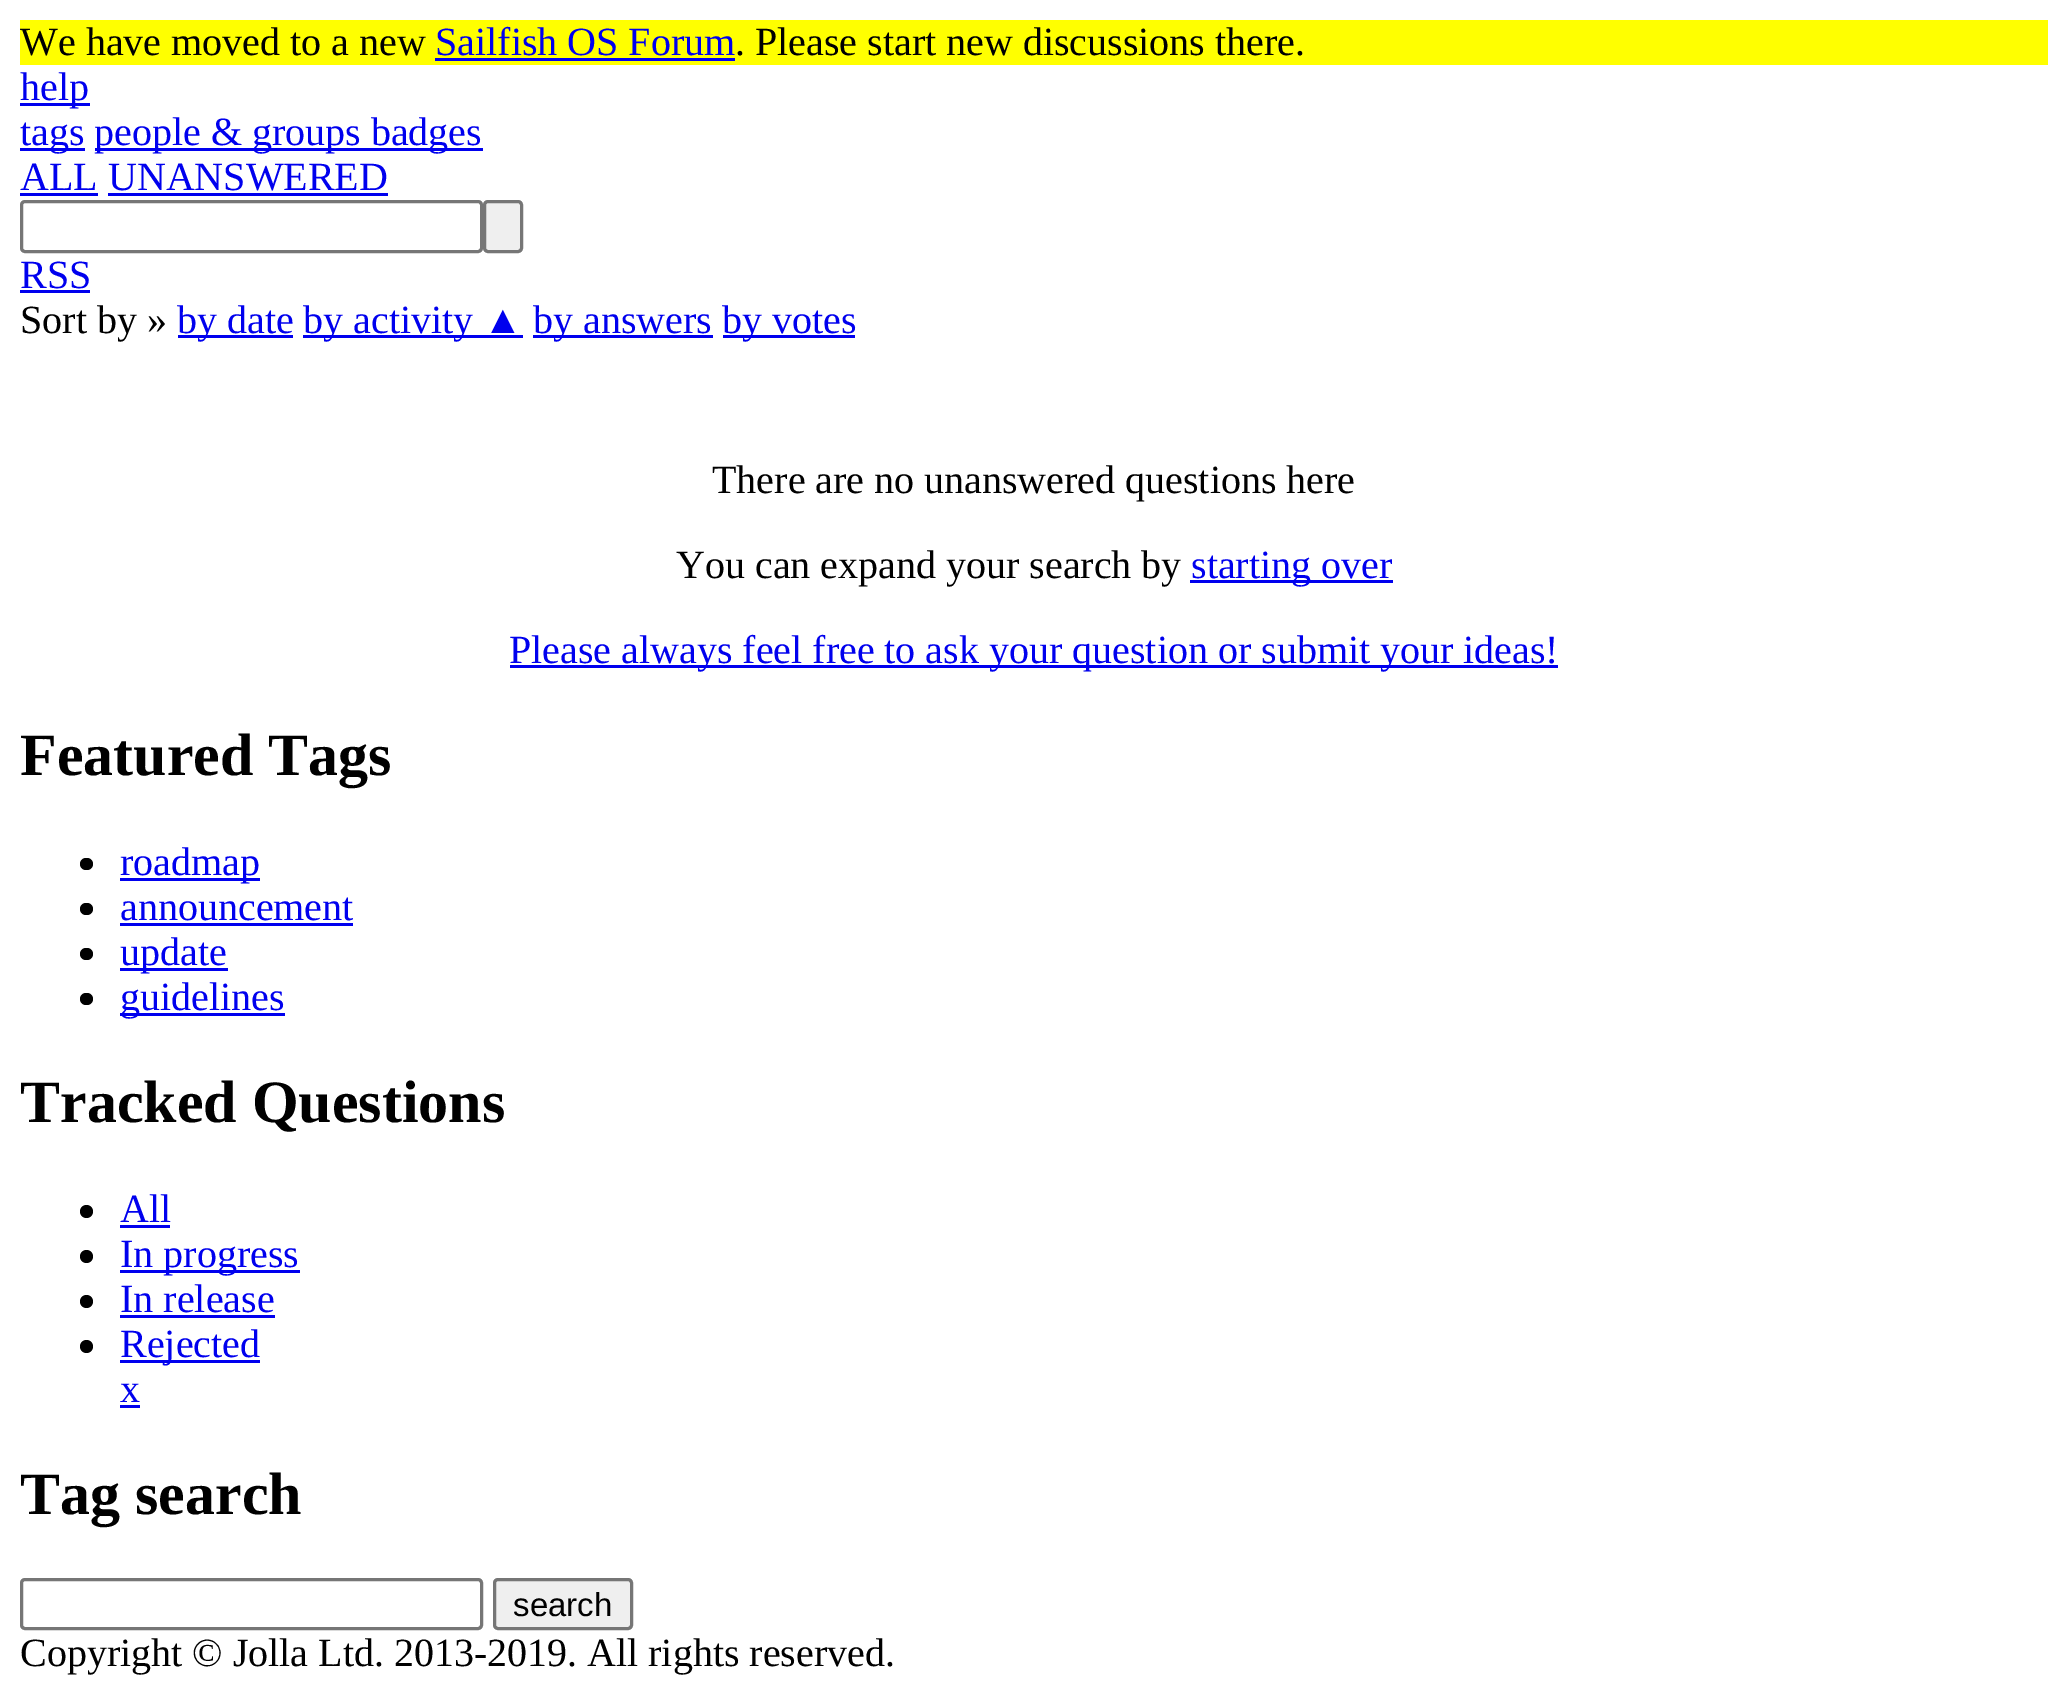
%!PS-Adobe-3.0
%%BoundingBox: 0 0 2066 1685
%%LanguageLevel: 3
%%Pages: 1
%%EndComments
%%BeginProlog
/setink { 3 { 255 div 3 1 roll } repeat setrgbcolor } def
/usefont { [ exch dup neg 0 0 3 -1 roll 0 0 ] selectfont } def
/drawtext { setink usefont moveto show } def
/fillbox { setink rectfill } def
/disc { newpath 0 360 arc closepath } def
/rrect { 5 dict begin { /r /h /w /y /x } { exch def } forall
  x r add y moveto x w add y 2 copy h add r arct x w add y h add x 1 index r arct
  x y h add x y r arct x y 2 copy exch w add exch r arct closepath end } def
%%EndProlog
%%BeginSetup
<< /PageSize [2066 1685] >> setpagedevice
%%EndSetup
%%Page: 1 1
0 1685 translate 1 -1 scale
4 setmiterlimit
0 0 2066 1685 255 255 255 fillbox
20 20 2028 45 255 255 0 fillbox
(We have moved to a new) 20 55 /LiberationSerif-Regular 40 0 0 0 drawtext
(Sailfish OS Forum) 435 55 /LiberationSerif-Regular 40 0 0 238 drawtext
435 58 300 3 0 0 238 fillbox
(. Please start new discussions there.) 735 55 /LiberationSerif-Regular 40 0 0 0 drawtext
20 103 70 3 0 0 238 fillbox
(help) 20 100 /LiberationSerif-Regular 40 0 0 238 drawtext
20 148 65 3 0 0 238 fillbox
(tags) 20 145 /LiberationSerif-Regular 40 0 0 238 drawtext
95 148 388 3 0 0 238 fillbox
(people & groups badges) 94 145 /LiberationSerif-Regular 40 0 0 238 drawtext
(ALL UNANSWERED) 20 190 /LiberationSerif-Regular 40 0 0 238 drawtext
20 193 78 3 0 0 238 fillbox
108 193 280 3 0 0 238 fillbox
118 118 118 setink
3 setlinewidth
21.5 201.5 460 50 3.5 rrect stroke
239 239 239 setink
484.5 201.5 37 50 3.5 rrect gsave fill grestore
118 118 118 setink
stroke
(RSS) 20 288 /LiberationSerif-Regular 40 0 0 238 drawtext
20 290 70 3 0 0 238 fillbox
(Sort by ») 20 333 /LiberationSerif-Regular 40 0 0 0 drawtext
178 335 115 3 0 0 238 fillbox
(by date) 177 333 /LiberationSerif-Regular 40 0 0 238 drawtext
303 335 220 3 0 0 238 fillbox
(by activity ▲) 303 333 /LiberationSerif-Regular 40 0 0 238 drawtext
533 335 180 3 0 0 238 fillbox
(by answers) 533 333 /LiberationSerif-Regular 40 0 0 238 drawtext
723 335 132 3 0 0 238 fillbox
(by votes) 722 333 /LiberationSerif-Regular 40 0 0 238 drawtext
(There are no unanswered questions here) 712 493 /LiberationSerif-Regular 40 0 0 0 drawtext
(You can expand your search by) 676 578 /LiberationSerif-Regular 40 0 0 0 drawtext
1190 580 203 3 0 0 238 fillbox
(starting over) 1191 578 /LiberationSerif-Regular 40 0 0 238 drawtext
510 665 1048 3 0 0 238 fillbox
(Please always feel free to ask your question or submit your ideas!) 509 663 /LiberationSerif-Regular 40 0 0 238 drawtext
(Featured Tags) 20 775 /LiberationSerif-Bold 60 0 0 0 drawtext
80 858 13 12 6 rrect fill
120 878 140 3 0 0 238 fillbox
(roadmap) 120 875 /LiberationSerif-Regular 40 0 0 238 drawtext
0 0 0 setink
80 903 13 12 6 rrect fill
(announcement) 120 920 /LiberationSerif-Regular 40 0 0 238 drawtext
120 923 233 3 0 0 238 fillbox
0 0 0 setink
80 948 13 12 6 rrect fill
120 968 108 3 0 0 238 fillbox
(update) 120 965 /LiberationSerif-Regular 40 0 0 238 drawtext
0 0 0 setink
80 993 13 12 6 rrect fill
120 1013 165 3 0 0 238 fillbox
(guidelines) 120 1010 /LiberationSerif-Regular 40 0 0 238 drawtext
(Tracked Questions) 20 1122 /LiberationSerif-Bold 60 0 0 0 drawtext
86.5 1211.5 6.5 disc fill
(All) 120 1222 /LiberationSerif-Regular 40 0 0 238 drawtext
120 1225 50 3 0 0 238 fillbox
0 0 0 setink
86.5 1256.5 6.5 disc fill
120 1270 180 3 0 0 238 fillbox
(In progress) 120 1267 /LiberationSerif-Regular 40 0 0 238 drawtext
0 0 0 setink
86.5 1301.5 6.5 disc fill
(In release) 120 1312 /LiberationSerif-Regular 40 0 0 238 drawtext
120 1315 155 3 0 0 238 fillbox
0 0 0 setink
86.5 1346.5 6.5 disc fill
120 1360 140 3 0 0 238 fillbox
(Rejected) 120 1357 /LiberationSerif-Regular 40 0 0 238 drawtext
(x) 120 1402 /LiberationSerif-Regular 40 0 0 238 drawtext
120 1405 20 3 0 0 238 fillbox
(Tag search) 20 1514 /LiberationSerif-Bold 60 0 0 0 drawtext
118 118 118 setink
21.5 1579.5 460 49 3.5 rrect stroke
239 239 239 setink
494.5 1579.5 137 49 3.5 rrect gsave fill grestore
118 118 118 setink
stroke
(search) 513 1616 /LiberationSans-Regular 33 0 0 0 drawtext
(Copyright © Jolla Ltd. 2013-2019. All rights reserved.) 20 1666 /LiberationSerif-Regular 40 0 0 0 drawtext
showpage
%%EOF
